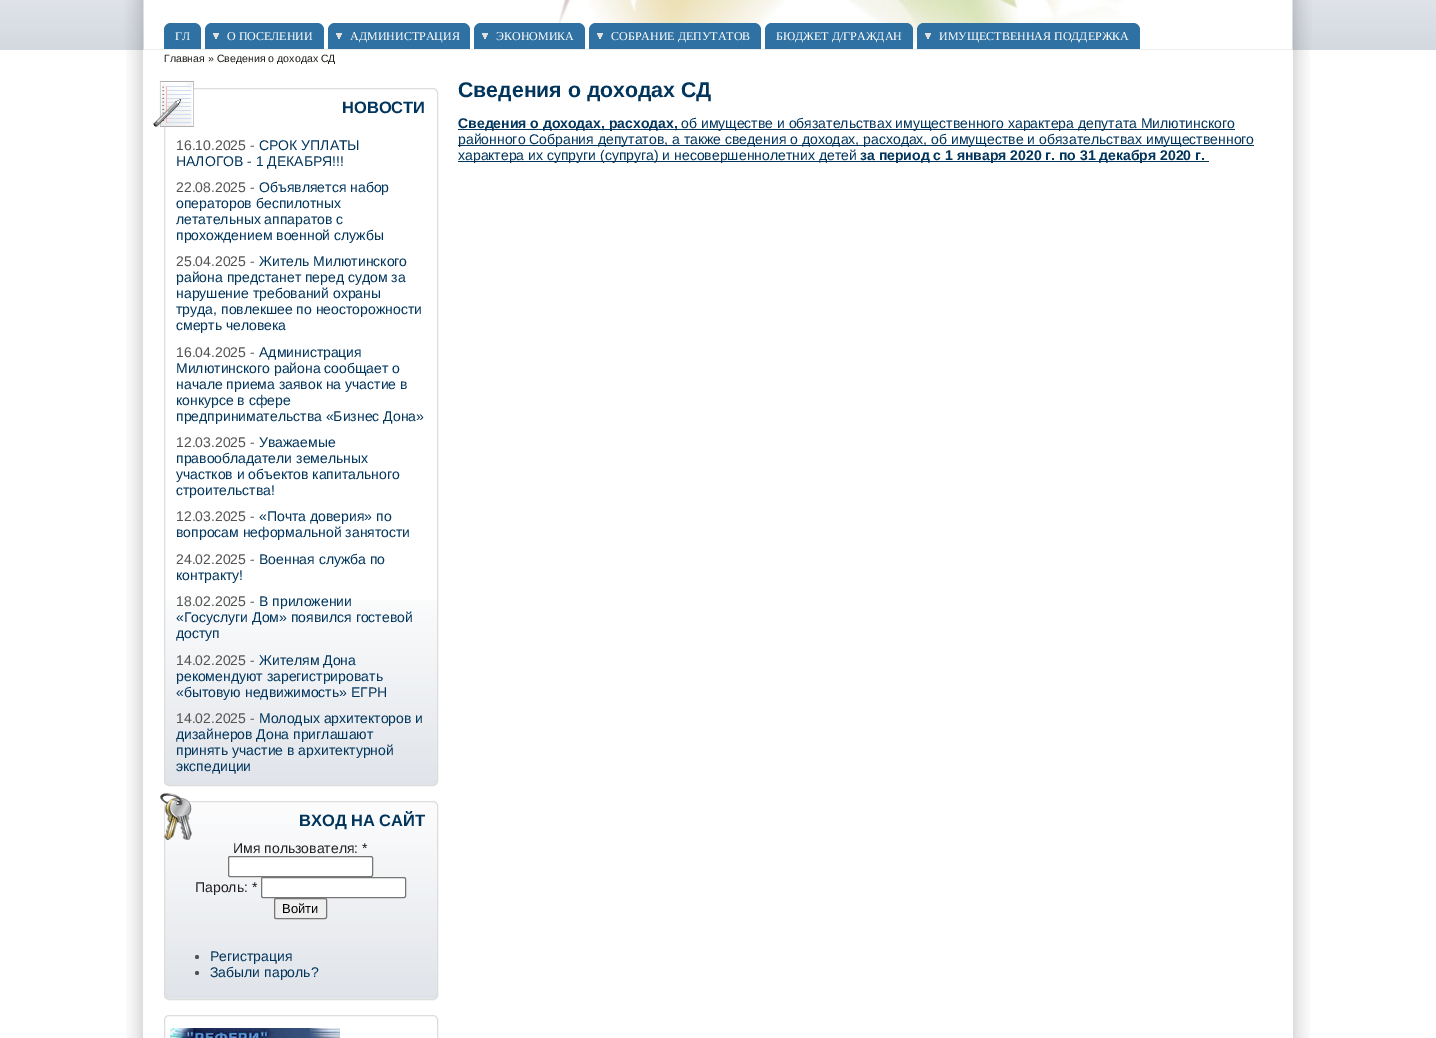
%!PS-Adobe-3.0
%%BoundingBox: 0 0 1436 1038
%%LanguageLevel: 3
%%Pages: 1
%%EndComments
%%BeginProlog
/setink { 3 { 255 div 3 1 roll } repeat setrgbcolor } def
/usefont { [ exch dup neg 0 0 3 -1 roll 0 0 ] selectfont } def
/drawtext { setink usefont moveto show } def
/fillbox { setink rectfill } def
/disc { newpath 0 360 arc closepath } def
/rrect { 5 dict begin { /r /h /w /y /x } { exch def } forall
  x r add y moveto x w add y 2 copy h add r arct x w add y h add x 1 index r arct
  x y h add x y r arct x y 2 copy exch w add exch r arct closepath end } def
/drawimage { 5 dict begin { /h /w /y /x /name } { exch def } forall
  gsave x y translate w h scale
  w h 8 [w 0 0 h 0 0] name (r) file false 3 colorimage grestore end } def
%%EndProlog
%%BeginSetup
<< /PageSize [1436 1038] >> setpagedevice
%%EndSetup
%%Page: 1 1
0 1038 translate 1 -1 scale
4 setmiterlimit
0 0 1436 1038 255 255 255 fillbox
(assets/img1.rgb) 0 0 1436 50 drawimage
(assets/img2.rgb) 124 0 19 50 drawimage
(assets/img3.rgb) 1293 0 19 50 drawimage
144 0 1148 49 255 255 255 fillbox
(assets/img4.rgb) 558 0 565 49 drawimage
144 49 1148 1 238 238 238 fillbox
47 113 162 setink
171 23 moveto 194 23 lineto 198 23 201 26 201 30 curveto 201 49 lineto 164 49 lineto 164 30 lineto 164 26 167 23 171 23 curveto closepath fill
(ГЛ) 175 40 /LiberationSerif-Regular 12 255 255 255 drawtext
47 113 162 setink
212 23 moveto 317 23 lineto 321 23 324 26 324 30 curveto 324 49 lineto 205 49 lineto 205 30 lineto 205 26 208 23 212 23 curveto closepath fill
(assets/img5.rgb) 213 33 6 6 drawimage
(О ПОСЕЛЕНИИ) 227 40 /LiberationSerif-Regular 12 255 255 255 drawtext
47 113 162 setink
335 23 moveto 463 23 lineto 467 23 470 26 470 30 curveto 470 49 lineto 328 49 lineto 328 30 lineto 328 26 331 23 335 23 curveto closepath fill
(assets/img5.rgb) 336 33 6 6 drawimage
(АДМИНИСТРАЦИЯ) 350 40 /LiberationSerif-Regular 12 255 255 255 drawtext
47 113 162 setink
481 23 moveto 578 23 lineto 582 23 585 26 585 30 curveto 585 49 lineto 474 49 lineto 474 30 lineto 474 26 477 23 481 23 curveto closepath fill
(assets/img5.rgb) 482 33 6 6 drawimage
(ЭКОНОМИКА) 496 40 /LiberationSerif-Regular 12 255 255 255 drawtext
47 113 162 setink
596 23 moveto 754 23 lineto 758 23 761 26 761 30 curveto 761 49 lineto 589 49 lineto 589 30 lineto 589 26 592 23 596 23 curveto closepath fill
(assets/img5.rgb) 597 33 6 6 drawimage
(СОБРАНИЕ ДЕПУТАТОВ) 611 40 /LiberationSerif-Regular 12 255 255 255 drawtext
47 113 162 setink
772 23 moveto 906 23 lineto 910 23 913 26 913 30 curveto 913 49 lineto 765 49 lineto 765 30 lineto 765 26 768 23 772 23 curveto closepath fill
(БЮДЖЕТ Д/ГРАЖДАН) 776 40 /LiberationSerif-Regular 12 255 255 255 drawtext
47 113 162 setink
924 23 moveto 1133 23 lineto 1137 23 1140 26 1140 30 curveto 1140 49 lineto 917 49 lineto 917 30 lineto 917 26 920 23 924 23 curveto closepath fill
(assets/img5.rgb) 925 33 6 6 drawimage
(ИМУЩЕСТВЕННАЯ ПОДДЕРЖКА) 939 40 /LiberationSerif-Regular 12 255 255 255 drawtext
(assets/img6.rgb) 126 50 17 988 drawimage
(assets/img7.rgb) 1293 50 17 988 drawimage
(Главная » Сведения о доходах СД) 164 62 /LiberationSans-Regular 10.6 30 32 27 drawtext
(assets/img8.rgb) 164 600 274 185 drawimage
221 221 221 setink
164.5 88.5 273 697 4.5 rrect stroke
(assets/img9.rgb) 153 81 41 46 drawimage
(НОВОСТИ) 342 113 /LiberationSans-Bold 16.5 1 53 92 drawtext
(16.10.2025 -) 176 150 /LiberationSans-Regular 14 83 83 83 drawtext
(СРОК УПЛАТЫ) 259 150 /LiberationSans-Regular 14 1 53 92 drawtext
(НАЛОГОВ - 1 ДЕКАБРЯ!!!) 176 166 /LiberationSans-Regular 14 1 53 92 drawtext
(22.08.2025 -) 176 192 /LiberationSans-Regular 14 83 83 83 drawtext
(Объявляется набор) 259 192 /LiberationSans-Regular 14 1 53 92 drawtext
(операторов беспилотных) 176 208 /LiberationSans-Regular 14 1 53 92 drawtext
(летательных аппаратов с) 176 224 /LiberationSans-Regular 14 1 53 92 drawtext
(прохождением военной службы) 176 240 /LiberationSans-Regular 14 1 53 92 drawtext
(25.04.2025 -) 176 266 /LiberationSans-Regular 14 83 83 83 drawtext
(Житель Милютинского) 259 266 /LiberationSans-Regular 14 1 53 92 drawtext
(района предстанет перед судом за) 176 282 /LiberationSans-Regular 14 1 53 92 drawtext
(нарушение требований охраны) 176 298 /LiberationSans-Regular 14 1 53 92 drawtext
(труда, повлекшее по неосторожности) 176 314 /LiberationSans-Regular 14 1 53 92 drawtext
(смерть человека) 176 330 /LiberationSans-Regular 14 1 53 92 drawtext
(16.04.2025 -) 176 357 /LiberationSans-Regular 14 83 83 83 drawtext
(Администрация) 259 357 /LiberationSans-Regular 14 1 53 92 drawtext
(Милютинского района сообщает о) 176 373 /LiberationSans-Regular 14 1 53 92 drawtext
(начале приема заявок на участие в) 176 389 /LiberationSans-Regular 14 1 53 92 drawtext
(конкурсе в сфере) 176 405 /LiberationSans-Regular 14 1 53 92 drawtext
(предпринимательства «Бизнес Дона») 176 421 /LiberationSans-Regular 14 1 53 92 drawtext
(12.03.2025 -) 176 447 /LiberationSans-Regular 14 83 83 83 drawtext
(Уважаемые) 259 447 /LiberationSans-Regular 14 1 53 92 drawtext
(правообладатели земельных) 176 463 /LiberationSans-Regular 14 1 53 92 drawtext
(участков и объектов капитального) 176 479 /LiberationSans-Regular 14 1 53 92 drawtext
(строительства!) 176 495 /LiberationSans-Regular 14 1 53 92 drawtext
(12.03.2025 -) 176 521 /LiberationSans-Regular 14 83 83 83 drawtext
(«Почта доверия» по) 259 521 /LiberationSans-Regular 14 1 53 92 drawtext
(вопросам неформальной занятости) 176 537 /LiberationSans-Regular 14 1 53 92 drawtext
(24.02.2025 -) 176 564 /LiberationSans-Regular 14 83 83 83 drawtext
(Военная служба по) 259 564 /LiberationSans-Regular 14 1 53 92 drawtext
(контракту!) 176 580 /LiberationSans-Regular 14 1 53 92 drawtext
(18.02.2025 -) 176 606 /LiberationSans-Regular 14 83 83 83 drawtext
(В приложении) 259 606 /LiberationSans-Regular 14 1 53 92 drawtext
(«Госуслуги Дом» появился гостевой) 176 622 /LiberationSans-Regular 14 1 53 92 drawtext
(доступ) 176 638 /LiberationSans-Regular 14 1 53 92 drawtext
(14.02.2025 -) 176 665 /LiberationSans-Regular 14 83 83 83 drawtext
(Жителям Дона) 259 665 /LiberationSans-Regular 14 1 53 92 drawtext
(рекомендуют зарегистрировать) 176 681 /LiberationSans-Regular 14 1 53 92 drawtext
(«бытовую недвижимость» ЕГРН) 176 697 /LiberationSans-Regular 14 1 53 92 drawtext
(14.02.2025 -) 176 723 /LiberationSans-Regular 14 83 83 83 drawtext
(Молодых архитекторов и) 259 723 /LiberationSans-Regular 14 1 53 92 drawtext
(дизайнеров Дона приглашают) 176 739 /LiberationSans-Regular 14 1 53 92 drawtext
(принять участие в архитектурной) 176 755 /LiberationSans-Regular 14 1 53 92 drawtext
(экспедиции) 176 771 /LiberationSans-Regular 14 1 53 92 drawtext
(assets/img10.rgb) 164 801 274 198 drawimage
221 221 221 setink
164.5 801.5 273 198 4.5 rrect stroke
(assets/img11.rgb) 160 793 32 47 drawimage
(ВХОД НА САЙТ) 299 826 /LiberationSans-Bold 16.5 1 53 92 drawtext
(Имя пользователя: *) 233 853 /LiberationSans-Regular 14 34 34 34 drawtext
255 255 255 setink
228.5 856.5 144 20 1.5 rrect gsave fill grestore
118 118 118 setink
stroke
(Пароль: *) 195 892 /LiberationSans-Regular 14 34 34 34 drawtext
255 255 255 setink
261.5 877.5 144 20 1.5 rrect gsave fill grestore
118 118 118 setink
stroke
239 239 239 setink
274.5 898.5 52 20 1.5 rrect gsave fill grestore
118 118 118 setink
stroke
(Войти) 282 913 /LiberationSans-Regular 13 0 0 0 drawtext
83 83 83 setink
197 957 2 disc fill
(Регистрация) 210 961 /LiberationSans-Regular 14 1 53 92 drawtext
83 83 83 setink
197 973 2 disc fill
(Забыли пароль?) 210 977 /LiberationSans-Regular 14 1 53 92 drawtext
221 221 221 setink
164.5 1015.5 273 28 4.5 rrect stroke
(assets/img12.rgb) 170 1028 170 10 drawimage
(Сведения о доходах СД) 458 97 /LiberationSans-Bold 21.25 1 53 92 drawtext
458 129 777 1 1 53 92 fillbox
(Сведения о доходах, расходах,) 458 128 /LiberationSans-Bold 14 1 53 92 drawtext
(об имуществе и обязательствах имущественного характера депутата Милютинского) 681 128 /LiberationSans-Regular 14 1 53 92 drawtext
458 145 796 1 1 53 92 fillbox
(районного Собрания депутатов, а также сведения о доходах, расходах, об имуществе и обязательствах имущественного) 458 144 /LiberationSans-Regular 14 1 53 92 drawtext
458 161 751 1 1 53 92 fillbox
(характера их супруги \(супруга\) и несовершеннолетних детей) 458 160 /LiberationSans-Regular 14 1 53 92 drawtext
(за период с 1 января 2020 г. по 31 декабря 2020 г.) 860 160 /LiberationSans-Bold 14 1 53 92 drawtext
showpage
%%EOF
